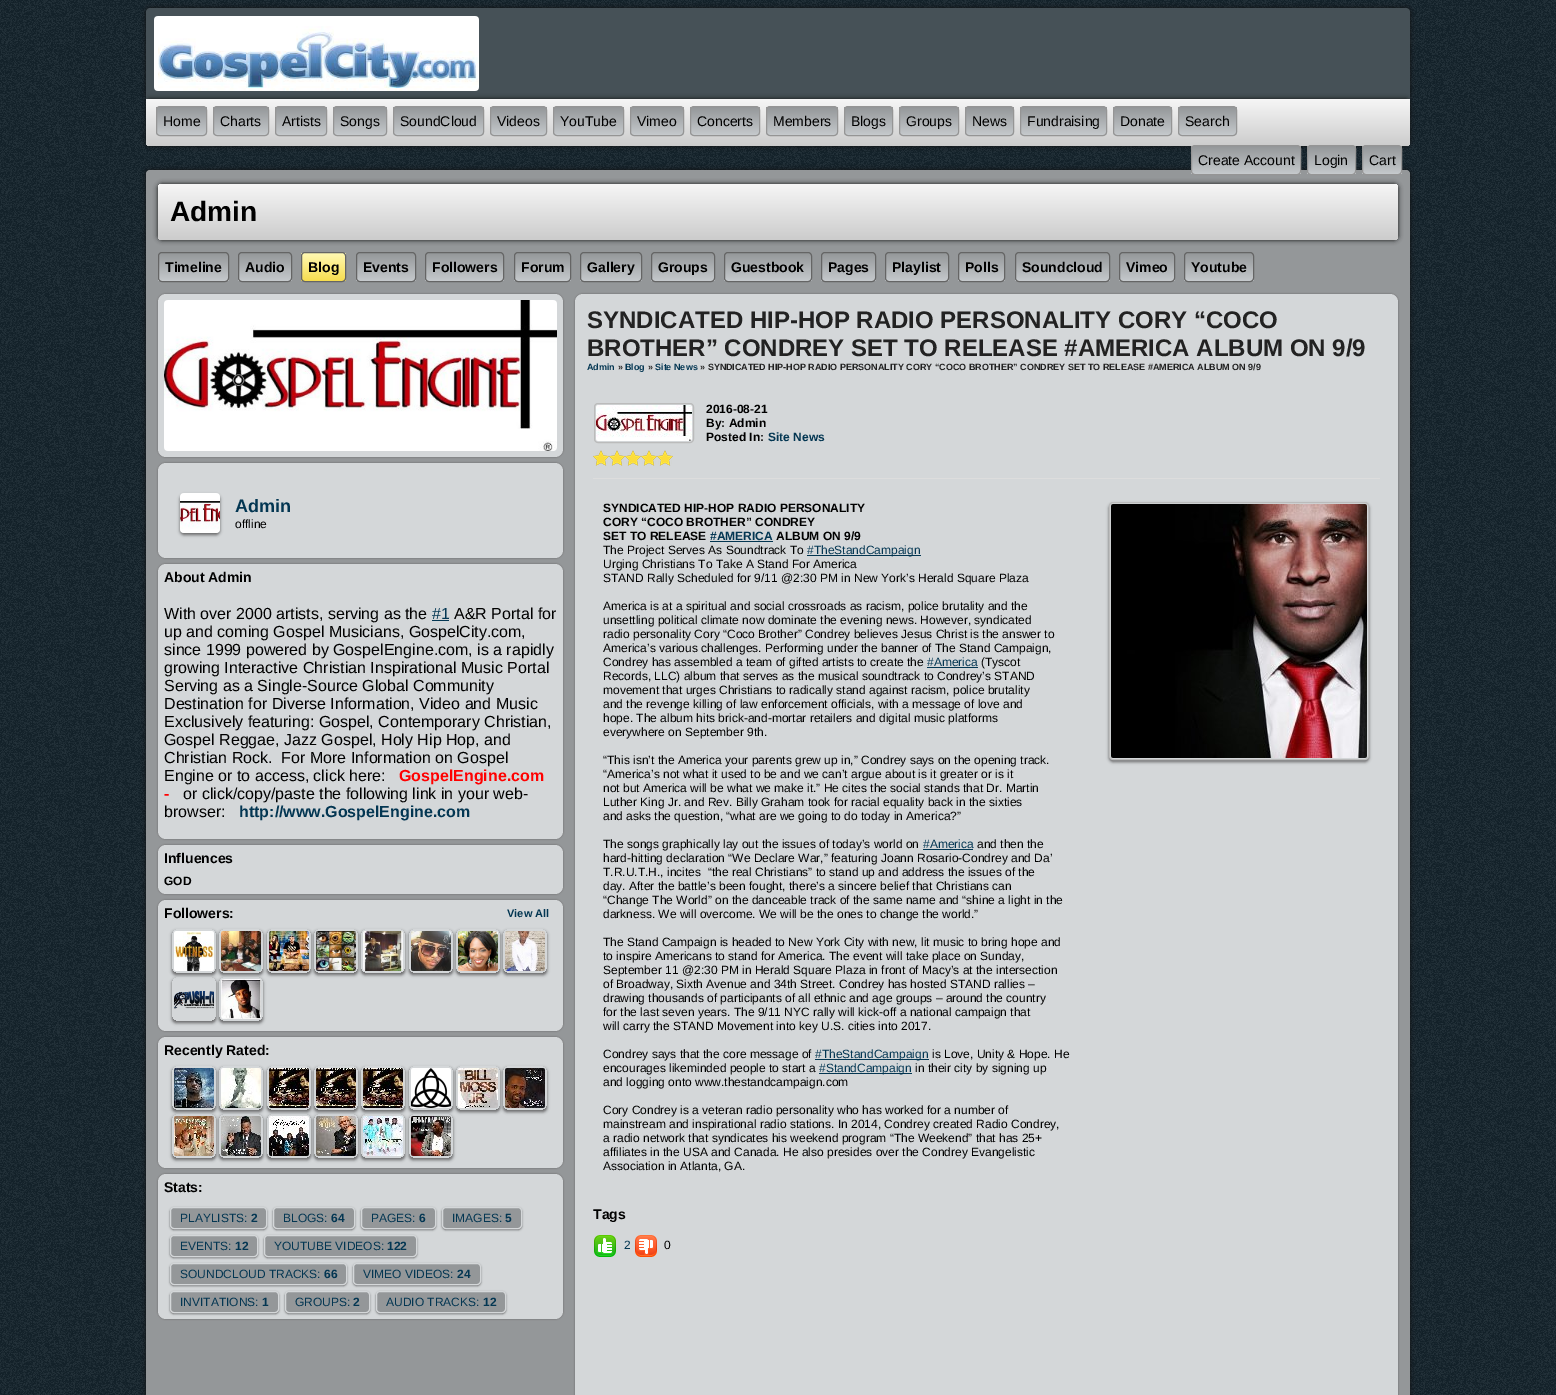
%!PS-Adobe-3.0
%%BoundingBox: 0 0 1556 1395
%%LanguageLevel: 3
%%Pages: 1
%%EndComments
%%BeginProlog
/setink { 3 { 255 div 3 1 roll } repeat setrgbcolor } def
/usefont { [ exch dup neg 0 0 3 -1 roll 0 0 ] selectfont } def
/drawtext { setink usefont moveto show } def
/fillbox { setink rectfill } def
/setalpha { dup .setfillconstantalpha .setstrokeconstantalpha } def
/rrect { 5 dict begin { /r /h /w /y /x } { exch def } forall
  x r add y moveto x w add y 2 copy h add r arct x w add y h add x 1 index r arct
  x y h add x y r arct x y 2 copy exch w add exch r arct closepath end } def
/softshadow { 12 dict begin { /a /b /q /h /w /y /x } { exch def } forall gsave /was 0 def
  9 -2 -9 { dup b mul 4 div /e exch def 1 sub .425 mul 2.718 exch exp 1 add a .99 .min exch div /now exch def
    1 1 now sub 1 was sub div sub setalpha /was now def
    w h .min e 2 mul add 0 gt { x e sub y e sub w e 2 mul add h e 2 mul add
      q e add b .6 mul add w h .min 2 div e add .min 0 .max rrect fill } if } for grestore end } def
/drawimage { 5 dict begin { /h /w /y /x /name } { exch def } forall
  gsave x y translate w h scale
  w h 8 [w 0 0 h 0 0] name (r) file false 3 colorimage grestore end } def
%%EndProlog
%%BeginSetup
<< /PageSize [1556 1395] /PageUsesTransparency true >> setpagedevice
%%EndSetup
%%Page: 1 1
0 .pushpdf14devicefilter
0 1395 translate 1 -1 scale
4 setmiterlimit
0 0 1556 1395 24 41 51 fillbox
(assets/img1.rgb) 0 0 1556 1395 drawimage
17 17 17 setink
146 8 1264 91 4 2.5 1 softshadow
70 81 87 setink
150 8 moveto 1406 8 lineto 1408 8 1410 10 1410 12 curveto 1410 99 lineto 146 99 lineto 146 12 lineto 146 10 148 8 150 8 curveto closepath fill
17 17 17 setink
146 99 1264 47 4 2.5 1 softshadow
(assets/img2.rgb) 154 16 325 75 drawimage
gsave 146 99 moveto 1410 99 lineto 1410 142 lineto 1410 144 1408 146 1406 146 curveto 150 146 lineto 148 146 146 144 146 142 curveto closepath clip newpath
<< /ShadingType 2 /ColorSpace /DeviceRGB /Coords [778 99 778 146] /Extend [true true] /Function << /FunctionType 2 /Domain [0 1] /C0 [0.965 0.965 0.965] /C1 [0.8 0.8 0.8] /N 1 >> >> shfill grestore
gsave
156 106 51 30 4 rrect clip newpath
gsave 156 107 moveto 207 107 lineto 207 135 lineto 156 135 lineto closepath clip newpath
<< /ShadingType 2 /ColorSpace /DeviceRGB /Coords [182 107 182 135] /Extend [true true] /Function << /FunctionType 2 /Domain [0 1] /C0 [0.58 0.592 0.6] /C1 [0.773 0.788 0.8] /N 1 >> >> shfill grestore
grestore
149 149 149 setink
156.5 106.5 50 29 3.5 rrect stroke
(Home) 163 126 /LiberationSans-Regular 14 0 0 0 drawtext
gsave
213 106 56 30 4 rrect clip newpath
gsave 213 107 moveto 269 107 lineto 269 135 lineto 213 135 lineto closepath clip newpath
<< /ShadingType 2 /ColorSpace /DeviceRGB /Coords [241 107 241 135] /Extend [true true] /Function << /FunctionType 2 /Domain [0 1] /C0 [0.58 0.592 0.6] /C1 [0.773 0.788 0.8] /N 1 >> >> shfill grestore
grestore
149 149 149 setink
213.5 106.5 55 29 3.5 rrect stroke
(Charts) 220 126 /LiberationSans-Regular 14 0 0 0 drawtext
gsave
275 106 52 30 4 rrect clip newpath
gsave 275 107 moveto 327 107 lineto 327 135 lineto 275 135 lineto closepath clip newpath
<< /ShadingType 2 /ColorSpace /DeviceRGB /Coords [301 107 301 135] /Extend [true true] /Function << /FunctionType 2 /Domain [0 1] /C0 [0.58 0.592 0.6] /C1 [0.773 0.788 0.8] /N 1 >> >> shfill grestore
grestore
149 149 149 setink
275.5 106.5 51 29 3.5 rrect stroke
(Artists) 282 126 /LiberationSans-Regular 14 0 0 0 drawtext
gsave
333 106 54 30 4 rrect clip newpath
gsave 333 107 moveto 387 107 lineto 387 135 lineto 333 135 lineto closepath clip newpath
<< /ShadingType 2 /ColorSpace /DeviceRGB /Coords [360 107 360 135] /Extend [true true] /Function << /FunctionType 2 /Domain [0 1] /C0 [0.58 0.592 0.6] /C1 [0.773 0.788 0.8] /N 1 >> >> shfill grestore
grestore
149 149 149 setink
333.5 106.5 53 29 3.5 rrect stroke
(Songs) 340 126 /LiberationSans-Regular 14 0 0 0 drawtext
gsave
393 106 91 30 4 rrect clip newpath
gsave 393 107 moveto 484 107 lineto 484 135 lineto 393 135 lineto closepath clip newpath
<< /ShadingType 2 /ColorSpace /DeviceRGB /Coords [439 107 439 135] /Extend [true true] /Function << /FunctionType 2 /Domain [0 1] /C0 [0.58 0.592 0.6] /C1 [0.773 0.788 0.8] /N 1 >> >> shfill grestore
grestore
149 149 149 setink
393.5 106.5 90 29 3.5 rrect stroke
(SoundCloud) 400 126 /LiberationSans-Regular 14 0 0 0 drawtext
gsave
490 106 57 30 4 rrect clip newpath
gsave 490 107 moveto 547 107 lineto 547 135 lineto 490 135 lineto closepath clip newpath
<< /ShadingType 2 /ColorSpace /DeviceRGB /Coords [519 107 519 135] /Extend [true true] /Function << /FunctionType 2 /Domain [0 1] /C0 [0.58 0.592 0.6] /C1 [0.773 0.788 0.8] /N 1 >> >> shfill grestore
grestore
149 149 149 setink
490.5 106.5 56 29 3.5 rrect stroke
(Videos) 497 126 /LiberationSans-Regular 14 0 0 0 drawtext
gsave
553 106 71 30 4 rrect clip newpath
gsave 553 107 moveto 624 107 lineto 624 135 lineto 553 135 lineto closepath clip newpath
<< /ShadingType 2 /ColorSpace /DeviceRGB /Coords [589 107 589 135] /Extend [true true] /Function << /FunctionType 2 /Domain [0 1] /C0 [0.58 0.592 0.6] /C1 [0.773 0.788 0.8] /N 1 >> >> shfill grestore
grestore
149 149 149 setink
553.5 106.5 70 29 3.5 rrect stroke
(YouTube) 560 126 /LiberationSans-Regular 14 0 0 0 drawtext
gsave
630 106 54 30 4 rrect clip newpath
gsave 630 107 moveto 684 107 lineto 684 135 lineto 630 135 lineto closepath clip newpath
<< /ShadingType 2 /ColorSpace /DeviceRGB /Coords [657 107 657 135] /Extend [true true] /Function << /FunctionType 2 /Domain [0 1] /C0 [0.58 0.592 0.6] /C1 [0.773 0.788 0.8] /N 1 >> >> shfill grestore
grestore
149 149 149 setink
630.5 106.5 53 29 3.5 rrect stroke
(Vimeo) 637 126 /LiberationSans-Regular 14 0 0 0 drawtext
gsave
690 106 70 30 4 rrect clip newpath
gsave 690 107 moveto 760 107 lineto 760 135 lineto 690 135 lineto closepath clip newpath
<< /ShadingType 2 /ColorSpace /DeviceRGB /Coords [725 107 725 135] /Extend [true true] /Function << /FunctionType 2 /Domain [0 1] /C0 [0.58 0.592 0.6] /C1 [0.773 0.788 0.8] /N 1 >> >> shfill grestore
grestore
149 149 149 setink
690.5 106.5 69 29 3.5 rrect stroke
(Concerts) 697 126 /LiberationSans-Regular 14 0 0 0 drawtext
gsave
766 106 72 30 4 rrect clip newpath
gsave 766 107 moveto 838 107 lineto 838 135 lineto 766 135 lineto closepath clip newpath
<< /ShadingType 2 /ColorSpace /DeviceRGB /Coords [802 107 802 135] /Extend [true true] /Function << /FunctionType 2 /Domain [0 1] /C0 [0.58 0.592 0.6] /C1 [0.773 0.788 0.8] /N 1 >> >> shfill grestore
grestore
149 149 149 setink
766.5 106.5 71 29 3.5 rrect stroke
(Members) 773 126 /LiberationSans-Regular 14 0 0 0 drawtext
gsave
844 106 49 30 4 rrect clip newpath
gsave 844 107 moveto 893 107 lineto 893 135 lineto 844 135 lineto closepath clip newpath
<< /ShadingType 2 /ColorSpace /DeviceRGB /Coords [869 107 869 135] /Extend [true true] /Function << /FunctionType 2 /Domain [0 1] /C0 [0.58 0.592 0.6] /C1 [0.773 0.788 0.8] /N 1 >> >> shfill grestore
grestore
149 149 149 setink
844.5 106.5 48 29 3.5 rrect stroke
(Blogs) 851 126 /LiberationSans-Regular 14 0 0 0 drawtext
gsave
899 106 60 30 4 rrect clip newpath
gsave 899 107 moveto 959 107 lineto 959 135 lineto 899 135 lineto closepath clip newpath
<< /ShadingType 2 /ColorSpace /DeviceRGB /Coords [929 107 929 135] /Extend [true true] /Function << /FunctionType 2 /Domain [0 1] /C0 [0.58 0.592 0.6] /C1 [0.773 0.788 0.8] /N 1 >> >> shfill grestore
grestore
149 149 149 setink
899.5 106.5 59 29 3.5 rrect stroke
(Groups) 906 126 /LiberationSans-Regular 14 0 0 0 drawtext
gsave
965 106 49 30 4 rrect clip newpath
gsave 965 107 moveto 1014 107 lineto 1014 135 lineto 965 135 lineto closepath clip newpath
<< /ShadingType 2 /ColorSpace /DeviceRGB /Coords [990 107 990 135] /Extend [true true] /Function << /FunctionType 2 /Domain [0 1] /C0 [0.58 0.592 0.6] /C1 [0.773 0.788 0.8] /N 1 >> >> shfill grestore
grestore
149 149 149 setink
965.5 106.5 48 29 3.5 rrect stroke
(News) 972 126 /LiberationSans-Regular 14 0 0 0 drawtext
gsave
1020 106 87 30 4 rrect clip newpath
gsave 1020 107 moveto 1107 107 lineto 1107 135 lineto 1020 135 lineto closepath clip newpath
<< /ShadingType 2 /ColorSpace /DeviceRGB /Coords [1064 107 1064 135] /Extend [true true] /Function << /FunctionType 2 /Domain [0 1] /C0 [0.58 0.592 0.6] /C1 [0.773 0.788 0.8] /N 1 >> >> shfill grestore
grestore
149 149 149 setink
1020.5 106.5 86 29 3.5 rrect stroke
(Fundraising) 1027 126 /LiberationSans-Regular 14 0 0 0 drawtext
gsave
1113 106 59 30 4 rrect clip newpath
gsave 1113 107 moveto 1172 107 lineto 1172 135 lineto 1113 135 lineto closepath clip newpath
<< /ShadingType 2 /ColorSpace /DeviceRGB /Coords [1143 107 1143 135] /Extend [true true] /Function << /FunctionType 2 /Domain [0 1] /C0 [0.58 0.592 0.6] /C1 [0.773 0.788 0.8] /N 1 >> >> shfill grestore
grestore
149 149 149 setink
1113.5 106.5 58 29 3.5 rrect stroke
(Donate) 1120 126 /LiberationSans-Regular 14 0 0 0 drawtext
gsave
1178 106 59 30 4 rrect clip newpath
gsave 1178 107 moveto 1237 107 lineto 1237 135 lineto 1178 135 lineto closepath clip newpath
<< /ShadingType 2 /ColorSpace /DeviceRGB /Coords [1208 107 1208 135] /Extend [true true] /Function << /FunctionType 2 /Domain [0 1] /C0 [0.58 0.592 0.6] /C1 [0.773 0.788 0.8] /N 1 >> >> shfill grestore
grestore
149 149 149 setink
1178.5 106.5 58 29 3.5 rrect stroke
(Search) 1185 126 /LiberationSans-Regular 14 0 0 0 drawtext
17 17 17 setink
146 170 1264 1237 4 2.5 1 softshadow
148 151 153 setink
146 170 1264 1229 4 rrect fill
gsave
1191 145 110 30 4 rrect clip newpath
gsave 1191 146 moveto 1301 146 lineto 1301 174 lineto 1191 174 lineto closepath clip newpath
<< /ShadingType 2 /ColorSpace /DeviceRGB /Coords [1246 146 1246 174] /Extend [true true] /Function << /FunctionType 2 /Domain [0 1] /C0 [0.58 0.592 0.6] /C1 [0.773 0.788 0.8] /N 1 >> >> shfill grestore
grestore
149 149 149 setink
1191.5 145.5 109 29 3.5 rrect stroke
(Create Account) 1198 165 /LiberationSans-Regular 14 0 0 0 drawtext
gsave
1307 145 49 30 4 rrect clip newpath
gsave 1307 146 moveto 1356 146 lineto 1356 174 lineto 1307 174 lineto closepath clip newpath
<< /ShadingType 2 /ColorSpace /DeviceRGB /Coords [1332 146 1332 174] /Extend [true true] /Function << /FunctionType 2 /Domain [0 1] /C0 [0.58 0.592 0.6] /C1 [0.773 0.788 0.8] /N 1 >> >> shfill grestore
grestore
149 149 149 setink
1307.5 145.5 48 29 3.5 rrect stroke
(Login) 1314 165 /LiberationSans-Regular 14 0 0 0 drawtext
gsave
1362 145 40 30 4 rrect clip newpath
gsave 1362 146 moveto 1402 146 lineto 1402 174 lineto 1362 174 lineto closepath clip newpath
<< /ShadingType 2 /ColorSpace /DeviceRGB /Coords [1382 146 1382 174] /Extend [true true] /Function << /FunctionType 2 /Domain [0 1] /C0 [0.58 0.592 0.6] /C1 [0.773 0.788 0.8] /N 1 >> >> shfill grestore
grestore
149 149 149 setink
1362.5 145.5 39 29 3.5 rrect stroke
(Cart) 1369 165 /LiberationSans-Regular 14 0 0 0 drawtext
17 17 17 setink
158 184 1240 56 4 2.5 1 softshadow
gsave 158 184 1240 56 4 rrect clip newpath
<< /ShadingType 2 /ColorSpace /DeviceRGB /Coords [778 184 778 240] /Extend [true true] /Function << /FunctionType 2 /Domain [0 1] /C0 [0.965 0.965 0.965] /C1 [0.8 0.8 0.8] /N 1 >> >> shfill grestore
(Admin) 170 221 /LiberationSans-Bold 28 0 0 0 drawtext
gsave
158 252 71 30 4 rrect clip newpath
gsave 158 253 moveto 229 253 lineto 229 281 lineto 158 281 lineto closepath clip newpath
<< /ShadingType 2 /ColorSpace /DeviceRGB /Coords [194 253 194 281] /Extend [true true] /Function << /FunctionType 2 /Domain [0 1] /C0 [0.58 0.592 0.6] /C1 [0.773 0.788 0.8] /N 1 >> >> shfill grestore
grestore
101 101 101 setink
158.5 252.5 70 29 3.5 rrect stroke
(Timeline) 165 272 /LiberationSans-Bold 14 0 0 0 drawtext
gsave
238 252 54 30 4 rrect clip newpath
gsave 238 253 moveto 292 253 lineto 292 281 lineto 238 281 lineto closepath clip newpath
<< /ShadingType 2 /ColorSpace /DeviceRGB /Coords [265 253 265 281] /Extend [true true] /Function << /FunctionType 2 /Domain [0 1] /C0 [0.58 0.592 0.6] /C1 [0.773 0.788 0.8] /N 1 >> >> shfill grestore
grestore
101 101 101 setink
238.5 252.5 53 29 3.5 rrect stroke
(Audio) 245 272 /LiberationSans-Bold 14 0 0 0 drawtext
gsave
301 252 45 30 4 rrect clip newpath
gsave 301 253 moveto 346 253 lineto 346 281 lineto 301 281 lineto closepath clip newpath
<< /ShadingType 2 /ColorSpace /DeviceRGB /Coords [324 253 324 281] /Extend [true true] /Function << /FunctionType 2 /Domain [0 1] /C0 [1 0.976 0.706] /C1 [0.969 0.867 0.31] /N 1 >> >> shfill grestore
grestore
101 101 101 setink
301.5 252.5 44 29 3.5 rrect stroke
(Blog) 308 272 /LiberationSans-Bold 14 0 0 0 drawtext
gsave
356 252 60 30 4 rrect clip newpath
gsave 356 253 moveto 416 253 lineto 416 281 lineto 356 281 lineto closepath clip newpath
<< /ShadingType 2 /ColorSpace /DeviceRGB /Coords [386 253 386 281] /Extend [true true] /Function << /FunctionType 2 /Domain [0 1] /C0 [0.58 0.592 0.6] /C1 [0.773 0.788 0.8] /N 1 >> >> shfill grestore
grestore
101 101 101 setink
356.5 252.5 59 29 3.5 rrect stroke
(Events) 363 272 /LiberationSans-Bold 14 0 0 0 drawtext
gsave
425 252 79 30 4 rrect clip newpath
gsave 425 253 moveto 504 253 lineto 504 281 lineto 425 281 lineto closepath clip newpath
<< /ShadingType 2 /ColorSpace /DeviceRGB /Coords [465 253 465 281] /Extend [true true] /Function << /FunctionType 2 /Domain [0 1] /C0 [0.58 0.592 0.6] /C1 [0.773 0.788 0.8] /N 1 >> >> shfill grestore
grestore
101 101 101 setink
425.5 252.5 78 29 3.5 rrect stroke
(Followers) 432 272 /LiberationSans-Bold 14 0 0 0 drawtext
gsave
514 252 57 30 4 rrect clip newpath
gsave 514 253 moveto 571 253 lineto 571 281 lineto 514 281 lineto closepath clip newpath
<< /ShadingType 2 /ColorSpace /DeviceRGB /Coords [543 253 543 281] /Extend [true true] /Function << /FunctionType 2 /Domain [0 1] /C0 [0.58 0.592 0.6] /C1 [0.773 0.788 0.8] /N 1 >> >> shfill grestore
grestore
101 101 101 setink
514.5 252.5 56 29 3.5 rrect stroke
(Forum) 521 272 /LiberationSans-Bold 14 0 0 0 drawtext
gsave
580 252 62 30 4 rrect clip newpath
gsave 580 253 moveto 642 253 lineto 642 281 lineto 580 281 lineto closepath clip newpath
<< /ShadingType 2 /ColorSpace /DeviceRGB /Coords [611 253 611 281] /Extend [true true] /Function << /FunctionType 2 /Domain [0 1] /C0 [0.58 0.592 0.6] /C1 [0.773 0.788 0.8] /N 1 >> >> shfill grestore
grestore
101 101 101 setink
580.5 252.5 61 29 3.5 rrect stroke
(Gallery) 587 272 /LiberationSans-Bold 14 0 0 0 drawtext
gsave
651 252 64 30 4 rrect clip newpath
gsave 651 253 moveto 715 253 lineto 715 281 lineto 651 281 lineto closepath clip newpath
<< /ShadingType 2 /ColorSpace /DeviceRGB /Coords [683 253 683 281] /Extend [true true] /Function << /FunctionType 2 /Domain [0 1] /C0 [0.58 0.592 0.6] /C1 [0.773 0.788 0.8] /N 1 >> >> shfill grestore
grestore
101 101 101 setink
651.5 252.5 63 29 3.5 rrect stroke
(Groups) 658 272 /LiberationSans-Bold 14 0 0 0 drawtext
gsave
724 252 88 30 4 rrect clip newpath
gsave 724 253 moveto 812 253 lineto 812 281 lineto 724 281 lineto closepath clip newpath
<< /ShadingType 2 /ColorSpace /DeviceRGB /Coords [768 253 768 281] /Extend [true true] /Function << /FunctionType 2 /Domain [0 1] /C0 [0.58 0.592 0.6] /C1 [0.773 0.788 0.8] /N 1 >> >> shfill grestore
grestore
101 101 101 setink
724.5 252.5 87 29 3.5 rrect stroke
(Guestbook) 731 272 /LiberationSans-Bold 14 0 0 0 drawtext
gsave
821 252 55 30 4 rrect clip newpath
gsave 821 253 moveto 876 253 lineto 876 281 lineto 821 281 lineto closepath clip newpath
<< /ShadingType 2 /ColorSpace /DeviceRGB /Coords [849 253 849 281] /Extend [true true] /Function << /FunctionType 2 /Domain [0 1] /C0 [0.58 0.592 0.6] /C1 [0.773 0.788 0.8] /N 1 >> >> shfill grestore
grestore
101 101 101 setink
821.5 252.5 54 29 3.5 rrect stroke
(Pages) 828 272 /LiberationSans-Bold 14 0 0 0 drawtext
gsave
885 252 64 30 4 rrect clip newpath
gsave 885 253 moveto 949 253 lineto 949 281 lineto 885 281 lineto closepath clip newpath
<< /ShadingType 2 /ColorSpace /DeviceRGB /Coords [917 253 917 281] /Extend [true true] /Function << /FunctionType 2 /Domain [0 1] /C0 [0.58 0.592 0.6] /C1 [0.773 0.788 0.8] /N 1 >> >> shfill grestore
grestore
101 101 101 setink
885.5 252.5 63 29 3.5 rrect stroke
(Playlist) 892 272 /LiberationSans-Bold 14 0 0 0 drawtext
gsave
958 252 47 30 4 rrect clip newpath
gsave 958 253 moveto 1005 253 lineto 1005 281 lineto 958 281 lineto closepath clip newpath
<< /ShadingType 2 /ColorSpace /DeviceRGB /Coords [982 253 982 281] /Extend [true true] /Function << /FunctionType 2 /Domain [0 1] /C0 [0.58 0.592 0.6] /C1 [0.773 0.788 0.8] /N 1 >> >> shfill grestore
grestore
101 101 101 setink
958.5 252.5 46 29 3.5 rrect stroke
(Polls) 965 272 /LiberationSans-Bold 14 0 0 0 drawtext
gsave
1015 252 95 30 4 rrect clip newpath
gsave 1015 253 moveto 1110 253 lineto 1110 281 lineto 1015 281 lineto closepath clip newpath
<< /ShadingType 2 /ColorSpace /DeviceRGB /Coords [1063 253 1063 281] /Extend [true true] /Function << /FunctionType 2 /Domain [0 1] /C0 [0.58 0.592 0.6] /C1 [0.773 0.788 0.8] /N 1 >> >> shfill grestore
grestore
101 101 101 setink
1015.5 252.5 94 29 3.5 rrect stroke
(Soundcloud) 1022 272 /LiberationSans-Bold 14 0 0 0 drawtext
gsave
1119 252 56 30 4 rrect clip newpath
gsave 1119 253 moveto 1175 253 lineto 1175 281 lineto 1119 281 lineto closepath clip newpath
<< /ShadingType 2 /ColorSpace /DeviceRGB /Coords [1147 253 1147 281] /Extend [true true] /Function << /FunctionType 2 /Domain [0 1] /C0 [0.58 0.592 0.6] /C1 [0.773 0.788 0.8] /N 1 >> >> shfill grestore
grestore
101 101 101 setink
1119.5 252.5 55 29 3.5 rrect stroke
(Vimeo) 1126 272 /LiberationSans-Bold 14 0 0 0 drawtext
gsave
1184 252 70 30 4 rrect clip newpath
gsave 1184 253 moveto 1254 253 lineto 1254 281 lineto 1184 281 lineto closepath clip newpath
<< /ShadingType 2 /ColorSpace /DeviceRGB /Coords [1219 253 1219 281] /Extend [true true] /Function << /FunctionType 2 /Domain [0 1] /C0 [0.58 0.592 0.6] /C1 [0.773 0.788 0.8] /N 1 >> >> shfill grestore
grestore
101 101 101 setink
1184.5 252.5 69 29 3.5 rrect stroke
(Youtube) 1191 272 /LiberationSans-Bold 14 0 0 0 drawtext
102 102 102 setink
158 294 405 163 8 1 1 softshadow
212 215 217 setink
158 294 405 163 8 rrect fill
(assets/img3.rgb) 164 300 393 151 drawimage
102 102 102 setink
158 463 405 95 8 1 1 softshadow
212 215 217 setink
158 463 405 95 8 rrect fill
0 0 0 setink
180 495 40 40 4 1.5 0.5 softshadow
(assets/img4.rgb) 180 493 40 40 drawimage
(Admin) 235 512 /LiberationSans-Bold 18 3 54 82 drawtext
(offline) 235 528 /LiberationSans-Regular 12 0 0 0 drawtext
102 102 102 setink
158 564 405 275 8 1 1 softshadow
212 215 217 setink
158 564 405 275 8 rrect fill
(About Admin) 164 582 /LiberationSans-Bold 14 0 0 0 drawtext
(With over 2000 artists, serving as the) 164 619 /LiberationSans-Regular 16 0 0 0 drawtext
(#1) 432 619 /LiberationSans-Regular 16 3 54 82 drawtext
432 620 17 1 3 54 82 fillbox
(A&R Portal for) 454 619 /LiberationSans-Regular 16 0 0 0 drawtext
(up and coming Gospel Musicians, GospelCity.com,) 164 637 /LiberationSans-Regular 16 0 0 0 drawtext
(since 1999 powered by GospelEngine.com, is a rapidly) 164 655 /LiberationSans-Regular 16 0 0 0 drawtext
(growing Interactive Christian Inspirational Music Portal) 164 673 /LiberationSans-Regular 16 0 0 0 drawtext
(Serving as a Single-Source Global Community) 164 691 /LiberationSans-Regular 16 0 0 0 drawtext
(Destination for Diverse Information, Video and Music) 164 709 /LiberationSans-Regular 16 0 0 0 drawtext
(Exclusively featuring: Gospel, Contemporary Christian,) 164 727 /LiberationSans-Regular 16 0 0 0 drawtext
(Gospel Reggae, Jazz Gospel, Holy Hip Hop, and) 164 745 /LiberationSans-Regular 16 0 0 0 drawtext
(Christian Rock.  For More Information on Gospel) 164 763 /LiberationSans-Regular 16 0 0 0 drawtext
(Engine or to access, click here:) 164 781 /LiberationSans-Regular 16 0 0 0 drawtext
(GospelEngine.com) 399 781 /LiberationSans-Bold 16 255 0 0 drawtext
(-) 164 799 /LiberationSans-Bold 16 255 0 0 drawtext
(or click/copy/paste the following link in your web-) 183 799 /LiberationSans-Regular 16 0 0 0 drawtext
(browser:) 164 817 /LiberationSans-Regular 16 0 0 0 drawtext
(http://www.GospelEngine.com) 239 817 /LiberationSans-Bold 16 3 54 82 drawtext
102 102 102 setink
158 845 405 49 8 1 1 softshadow
212 215 217 setink
158 845 405 49 8 rrect fill
(Influences) 164 863 /LiberationSans-Bold 14 0 0 0 drawtext
(GOD) 164 885 /LiberationSans-Bold 12 0 0 0 drawtext
102 102 102 setink
158 900 405 131 8 1 1 softshadow
212 215 217 setink
158 900 405 131 8 rrect fill
(Followers:) 164 918 /LiberationSans-Bold 14 0 0 0 drawtext
(View All) 507 917 /LiberationSans-Bold 11 3 54 82 drawtext
gsave
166 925 moveto 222 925 lineto 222 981 lineto 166 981 lineto closepath 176 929 moveto 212 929 lineto 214 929 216 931 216 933 curveto 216 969 lineto 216 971 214 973 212 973 curveto 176 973 lineto 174 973 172 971 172 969 curveto 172 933 lineto 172 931 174 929 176 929 curveto closepath eoclip newpath
0 0 0 setink
172 931 44 44 4 1.5 0.5 softshadow
grestore
(assets/img5.rgb) 174 931 40 40 drawimage
gsave
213 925 moveto 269 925 lineto 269 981 lineto 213 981 lineto closepath 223 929 moveto 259 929 lineto 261 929 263 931 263 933 curveto 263 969 lineto 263 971 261 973 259 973 curveto 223 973 lineto 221 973 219 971 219 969 curveto 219 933 lineto 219 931 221 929 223 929 curveto closepath eoclip newpath
0 0 0 setink
219 931 44 44 4 1.5 0.5 softshadow
grestore
gsave
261 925 moveto 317 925 lineto 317 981 lineto 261 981 lineto closepath 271 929 moveto 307 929 lineto 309 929 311 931 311 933 curveto 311 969 lineto 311 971 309 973 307 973 curveto 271 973 lineto 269 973 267 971 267 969 curveto 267 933 lineto 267 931 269 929 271 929 curveto closepath eoclip newpath
0 0 0 setink
267 931 44 44 4 1.5 0.5 softshadow
grestore
(assets/img7.rgb) 269 931 40 40 drawimage
gsave
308 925 moveto 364 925 lineto 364 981 lineto 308 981 lineto closepath 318 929 moveto 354 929 lineto 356 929 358 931 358 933 curveto 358 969 lineto 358 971 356 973 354 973 curveto 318 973 lineto 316 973 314 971 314 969 curveto 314 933 lineto 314 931 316 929 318 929 curveto closepath eoclip newpath
0 0 0 setink
314 931 44 44 4 1.5 0.5 softshadow
grestore
(assets/img8.rgb) 316 931 40 40 drawimage
gsave
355 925 moveto 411 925 lineto 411 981 lineto 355 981 lineto closepath 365 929 moveto 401 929 lineto 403 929 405 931 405 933 curveto 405 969 lineto 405 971 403 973 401 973 curveto 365 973 lineto 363 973 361 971 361 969 curveto 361 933 lineto 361 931 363 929 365 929 curveto closepath eoclip newpath
0 0 0 setink
361 931 44 44 4 1.5 0.5 softshadow
grestore
gsave
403 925 moveto 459 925 lineto 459 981 lineto 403 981 lineto closepath 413 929 moveto 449 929 lineto 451 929 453 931 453 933 curveto 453 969 lineto 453 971 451 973 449 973 curveto 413 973 lineto 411 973 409 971 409 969 curveto 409 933 lineto 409 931 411 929 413 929 curveto closepath eoclip newpath
0 0 0 setink
409 931 44 44 4 1.5 0.5 softshadow
grestore
(assets/img10.rgb) 411 931 40 40 drawimage
gsave
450 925 moveto 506 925 lineto 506 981 lineto 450 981 lineto closepath 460 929 moveto 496 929 lineto 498 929 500 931 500 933 curveto 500 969 lineto 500 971 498 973 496 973 curveto 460 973 lineto 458 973 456 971 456 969 curveto 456 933 lineto 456 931 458 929 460 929 curveto closepath eoclip newpath
0 0 0 setink
456 931 44 44 4 1.5 0.5 softshadow
grestore
(assets/img11.rgb) 458 931 40 40 drawimage
gsave
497 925 moveto 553 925 lineto 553 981 lineto 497 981 lineto closepath 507 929 moveto 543 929 lineto 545 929 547 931 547 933 curveto 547 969 lineto 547 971 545 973 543 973 curveto 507 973 lineto 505 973 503 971 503 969 curveto 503 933 lineto 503 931 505 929 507 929 curveto closepath eoclip newpath
0 0 0 setink
503 931 44 44 4 1.5 0.5 softshadow
grestore
(assets/img6.rgb) 221 931 40 40 drawimage
(assets/img9.rgb) 363 931 40 40 drawimage
(assets/img12.rgb) 505 931 40 40 drawimage
gsave
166 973 moveto 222 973 lineto 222 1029 lineto 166 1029 lineto closepath 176 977 moveto 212 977 lineto 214 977 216 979 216 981 curveto 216 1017 lineto 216 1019 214 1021 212 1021 curveto 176 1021 lineto 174 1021 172 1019 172 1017 curveto 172 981 lineto 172 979 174 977 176 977 curveto closepath eoclip newpath
0 0 0 setink
172 979 44 44 4 1.5 0.5 softshadow
grestore
(assets/img13.rgb) 174 990 40 19 drawimage
gsave
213 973 moveto 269 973 lineto 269 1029 lineto 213 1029 lineto closepath 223 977 moveto 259 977 lineto 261 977 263 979 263 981 curveto 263 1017 lineto 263 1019 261 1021 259 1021 curveto 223 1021 lineto 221 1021 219 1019 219 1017 curveto 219 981 lineto 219 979 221 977 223 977 curveto closepath eoclip newpath
0 0 0 setink
219 979 44 44 4 1.5 0.5 softshadow
grestore
(assets/img14.rgb) 221 979 40 40 drawimage
102 102 102 setink
158 1037 405 131 8 1 1 softshadow
212 215 217 setink
158 1037 405 131 8 rrect fill
(Recently Rated:) 164 1055 /LiberationSans-Bold 14 0 0 0 drawtext
gsave
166 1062 moveto 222 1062 lineto 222 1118 lineto 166 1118 lineto closepath 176 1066 moveto 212 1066 lineto 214 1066 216 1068 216 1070 curveto 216 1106 lineto 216 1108 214 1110 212 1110 curveto 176 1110 lineto 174 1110 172 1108 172 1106 curveto 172 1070 lineto 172 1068 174 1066 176 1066 curveto closepath eoclip newpath
172 1068 44 44 4 1.5 0.5 softshadow
grestore
(assets/img15.rgb) 174 1068 40 40 drawimage
gsave
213 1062 moveto 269 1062 lineto 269 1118 lineto 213 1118 lineto closepath 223 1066 moveto 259 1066 lineto 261 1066 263 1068 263 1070 curveto 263 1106 lineto 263 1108 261 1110 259 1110 curveto 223 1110 lineto 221 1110 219 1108 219 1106 curveto 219 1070 lineto 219 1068 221 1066 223 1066 curveto closepath eoclip newpath
219 1068 44 44 4 1.5 0.5 softshadow
grestore
gsave
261 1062 moveto 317 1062 lineto 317 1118 lineto 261 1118 lineto closepath 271 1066 moveto 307 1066 lineto 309 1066 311 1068 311 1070 curveto 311 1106 lineto 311 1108 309 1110 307 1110 curveto 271 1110 lineto 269 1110 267 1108 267 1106 curveto 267 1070 lineto 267 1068 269 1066 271 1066 curveto closepath eoclip newpath
267 1068 44 44 4 1.5 0.5 softshadow
grestore
(assets/img17.rgb) 269 1068 40 40 drawimage
gsave
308 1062 moveto 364 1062 lineto 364 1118 lineto 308 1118 lineto closepath 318 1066 moveto 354 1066 lineto 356 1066 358 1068 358 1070 curveto 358 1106 lineto 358 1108 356 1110 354 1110 curveto 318 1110 lineto 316 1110 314 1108 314 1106 curveto 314 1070 lineto 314 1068 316 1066 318 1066 curveto closepath eoclip newpath
314 1068 44 44 4 1.5 0.5 softshadow
grestore
(assets/img18.rgb) 316 1068 40 40 drawimage
gsave
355 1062 moveto 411 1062 lineto 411 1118 lineto 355 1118 lineto closepath 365 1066 moveto 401 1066 lineto 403 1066 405 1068 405 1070 curveto 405 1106 lineto 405 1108 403 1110 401 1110 curveto 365 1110 lineto 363 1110 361 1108 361 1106 curveto 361 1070 lineto 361 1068 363 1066 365 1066 curveto closepath eoclip newpath
361 1068 44 44 4 1.5 0.5 softshadow
grestore
gsave
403 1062 moveto 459 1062 lineto 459 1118 lineto 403 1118 lineto closepath 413 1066 moveto 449 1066 lineto 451 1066 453 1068 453 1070 curveto 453 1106 lineto 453 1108 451 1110 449 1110 curveto 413 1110 lineto 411 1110 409 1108 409 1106 curveto 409 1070 lineto 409 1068 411 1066 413 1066 curveto closepath eoclip newpath
409 1068 44 44 4 1.5 0.5 softshadow
grestore
(assets/img19.rgb) 411 1068 40 40 drawimage
gsave
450 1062 moveto 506 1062 lineto 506 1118 lineto 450 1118 lineto closepath 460 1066 moveto 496 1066 lineto 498 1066 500 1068 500 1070 curveto 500 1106 lineto 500 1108 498 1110 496 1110 curveto 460 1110 lineto 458 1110 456 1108 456 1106 curveto 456 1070 lineto 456 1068 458 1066 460 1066 curveto closepath eoclip newpath
456 1068 44 44 4 1.5 0.5 softshadow
grestore
(assets/img20.rgb) 458 1068 40 40 drawimage
gsave
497 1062 moveto 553 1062 lineto 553 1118 lineto 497 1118 lineto closepath 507 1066 moveto 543 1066 lineto 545 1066 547 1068 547 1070 curveto 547 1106 lineto 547 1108 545 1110 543 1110 curveto 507 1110 lineto 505 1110 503 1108 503 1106 curveto 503 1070 lineto 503 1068 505 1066 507 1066 curveto closepath eoclip newpath
503 1068 44 44 4 1.5 0.5 softshadow
grestore
(assets/img16.rgb) 221 1068 40 40 drawimage
(assets/img18.rgb) 363 1068 40 40 drawimage
(assets/img21.rgb) 505 1068 40 40 drawimage
gsave
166 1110 moveto 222 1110 lineto 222 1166 lineto 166 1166 lineto closepath 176 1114 moveto 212 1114 lineto 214 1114 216 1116 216 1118 curveto 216 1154 lineto 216 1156 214 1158 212 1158 curveto 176 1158 lineto 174 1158 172 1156 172 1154 curveto 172 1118 lineto 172 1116 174 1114 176 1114 curveto closepath eoclip newpath
172 1116 44 44 4 1.5 0.5 softshadow
grestore
(assets/img22.rgb) 174 1116 40 40 drawimage
gsave
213 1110 moveto 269 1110 lineto 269 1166 lineto 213 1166 lineto closepath 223 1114 moveto 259 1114 lineto 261 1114 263 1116 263 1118 curveto 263 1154 lineto 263 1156 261 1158 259 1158 curveto 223 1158 lineto 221 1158 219 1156 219 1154 curveto 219 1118 lineto 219 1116 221 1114 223 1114 curveto closepath eoclip newpath
219 1116 44 44 4 1.5 0.5 softshadow
grestore
gsave
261 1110 moveto 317 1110 lineto 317 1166 lineto 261 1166 lineto closepath 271 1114 moveto 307 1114 lineto 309 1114 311 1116 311 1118 curveto 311 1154 lineto 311 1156 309 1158 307 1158 curveto 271 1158 lineto 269 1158 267 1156 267 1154 curveto 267 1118 lineto 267 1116 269 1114 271 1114 curveto closepath eoclip newpath
267 1116 44 44 4 1.5 0.5 softshadow
grestore
(assets/img24.rgb) 269 1116 40 40 drawimage
gsave
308 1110 moveto 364 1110 lineto 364 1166 lineto 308 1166 lineto closepath 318 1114 moveto 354 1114 lineto 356 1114 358 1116 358 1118 curveto 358 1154 lineto 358 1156 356 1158 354 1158 curveto 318 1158 lineto 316 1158 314 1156 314 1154 curveto 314 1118 lineto 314 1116 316 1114 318 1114 curveto closepath eoclip newpath
314 1116 44 44 4 1.5 0.5 softshadow
grestore
(assets/img25.rgb) 316 1116 40 40 drawimage
gsave
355 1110 moveto 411 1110 lineto 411 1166 lineto 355 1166 lineto closepath 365 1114 moveto 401 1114 lineto 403 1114 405 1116 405 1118 curveto 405 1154 lineto 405 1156 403 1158 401 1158 curveto 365 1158 lineto 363 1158 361 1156 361 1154 curveto 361 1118 lineto 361 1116 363 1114 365 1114 curveto closepath eoclip newpath
361 1116 44 44 4 1.5 0.5 softshadow
grestore
gsave
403 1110 moveto 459 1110 lineto 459 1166 lineto 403 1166 lineto closepath 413 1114 moveto 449 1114 lineto 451 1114 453 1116 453 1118 curveto 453 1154 lineto 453 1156 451 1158 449 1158 curveto 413 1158 lineto 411 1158 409 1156 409 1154 curveto 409 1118 lineto 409 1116 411 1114 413 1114 curveto closepath eoclip newpath
409 1116 44 44 4 1.5 0.5 softshadow
grestore
(assets/img23.rgb) 221 1116 40 40 drawimage
(assets/img26.rgb) 363 1116 40 40 drawimage
(assets/img27.rgb) 411 1116 40 40 drawimage
102 102 102 setink
158 1174 405 145 8 1 1 softshadow
212 215 217 setink
158 1174 405 145 8 rrect fill
(Stats:) 164 1192 /LiberationSans-Bold 14 0 0 0 drawtext
170 1208 97 22 4 1 0.5 softshadow
148 151 153 setink
170.5 1207.5 96 21 3.5 rrect gsave fill grestore
212 215 217 setink
stroke
(PLAYLISTS:) 180 1222 /LiberationSans-Regular 12 3 54 82 drawtext
(2) 251 1222 /LiberationSans-Bold 12 3 54 82 drawtext
0 0 0 setink
273 1208 82 22 4 1 0.5 softshadow
148 151 153 setink
273.5 1207.5 81 21 3.5 rrect gsave fill grestore
212 215 217 setink
stroke
(BLOGS:) 283 1222 /LiberationSans-Regular 12 3 54 82 drawtext
(64) 331 1222 /LiberationSans-Bold 12 3 54 82 drawtext
0 0 0 setink
361 1208 75 22 4 1 0.5 softshadow
148 151 153 setink
361.5 1207.5 74 21 3.5 rrect gsave fill grestore
212 215 217 setink
stroke
(PAGES:) 371 1222 /LiberationSans-Regular 12 3 54 82 drawtext
(6) 419 1222 /LiberationSans-Bold 12 3 54 82 drawtext
0 0 0 setink
442 1208 80 22 4 1 0.5 softshadow
148 151 153 setink
442.5 1207.5 79 21 3.5 rrect gsave fill grestore
212 215 217 setink
stroke
(IMAGES:) 452 1222 /LiberationSans-Regular 12 3 54 82 drawtext
(5) 505 1222 /LiberationSans-Bold 12 3 54 82 drawtext
0 0 0 setink
170 1236 88 22 4 1 0.5 softshadow
148 151 153 setink
170.5 1235.5 87 21 3.5 rrect gsave fill grestore
212 215 217 setink
stroke
(EVENTS:) 180 1250 /LiberationSans-Regular 12 3 54 82 drawtext
(12) 235 1250 /LiberationSans-Bold 12 3 54 82 drawtext
0 0 0 setink
264 1236 153 22 4 1 0.5 softshadow
148 151 153 setink
264.5 1235.5 152 21 3.5 rrect gsave fill grestore
212 215 217 setink
stroke
(YOUTUBE VIDEOS:) 274 1250 /LiberationSans-Regular 12 3 54 82 drawtext
(122) 387 1250 /LiberationSans-Bold 12 3 54 82 drawtext
0 0 0 setink
170 1264 177 22 4 1 0.5 softshadow
148 151 153 setink
170.5 1263.5 176 21 3.5 rrect gsave fill grestore
212 215 217 setink
stroke
(SOUNDCLOUD TRACKS:) 180 1278 /LiberationSans-Regular 12 3 54 82 drawtext
(66) 324 1278 /LiberationSans-Bold 12 3 54 82 drawtext
0 0 0 setink
353 1264 128 22 4 1 0.5 softshadow
148 151 153 setink
353.5 1263.5 127 21 3.5 rrect gsave fill grestore
212 215 217 setink
stroke
(VIMEO VIDEOS:) 363 1278 /LiberationSans-Regular 12 3 54 82 drawtext
(24) 457 1278 /LiberationSans-Bold 12 3 54 82 drawtext
0 0 0 setink
170 1292 109 22 4 1 0.5 softshadow
148 151 153 setink
170.5 1291.5 108 21 3.5 rrect gsave fill grestore
212 215 217 setink
stroke
(INVITATIONS:) 180 1306 /LiberationSans-Regular 12 3 54 82 drawtext
(1) 262 1306 /LiberationSans-Bold 12 3 54 82 drawtext
0 0 0 setink
285 1292 85 22 4 1 0.5 softshadow
148 151 153 setink
285.5 1291.5 84 21 3.5 rrect gsave fill grestore
212 215 217 setink
stroke
(GROUPS:) 295 1306 /LiberationSans-Regular 12 3 54 82 drawtext
(2) 353 1306 /LiberationSans-Bold 12 3 54 82 drawtext
0 0 0 setink
376 1292 130 22 4 1 0.5 softshadow
148 151 153 setink
376.5 1291.5 129 21 3.5 rrect gsave fill grestore
212 215 217 setink
stroke
(AUDIO TRACKS:) 386 1306 /LiberationSans-Regular 12 3 54 82 drawtext
(12) 483 1306 /LiberationSans-Bold 12 3 54 82 drawtext
102 102 102 setink
575 294 823 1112 8 1 1 softshadow
212 215 217 setink
575 294 823 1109 8 rrect fill
(SYNDICATED HIP-HOP RADIO PERSONALITY CORY “COCO) 587 328 /LiberationSans-Bold 24 34 34 34 drawtext
(BROTHER” CONDREY SET TO RELEASE #AMERICA ALBUM ON 9/9) 587 356 /LiberationSans-Bold 24 34 34 34 drawtext
(Admin) 587 370 /LiberationSans-Bold 9 3 54 82 drawtext
(») 618 370 /LiberationSans-Bold 9 34 34 34 drawtext
(Blog) 625 370 /LiberationSans-Bold 9 3 54 82 drawtext
(») 648 370 /LiberationSans-Bold 9 34 34 34 drawtext
(Site News) 655 370 /LiberationSans-Bold 9 3 54 82 drawtext
(» SYNDICATED HIP-HOP RADIO PERSONALITY CORY “COCO BROTHER” CONDREY SET TO RELEASE #AMERICA ALBUM ON 9/9) 700 370 /LiberationSans-Bold 9 34 34 34 drawtext
593 478 787 1 221 221 221 fillbox
187 187 187 setink
594.5 403.5 99 39 3.5 rrect stroke
(assets/img28.rgb) 596 405 96 36 drawimage
(2016-08-21) 706 413 /LiberationSans-Bold 12 0 0 0 drawtext
(By: Admin) 706 427 /LiberationSans-Bold 12 0 0 0 drawtext
(Posted In:) 706 441 /LiberationSans-Bold 12 0 0 0 drawtext
(Site News) 768 441 /LiberationSans-Bold 12 3 54 82 drawtext
(assets/img29.rgb) 593 450 80 16 drawimage
(assets/img30.rgb) 593 450 80 16 drawimage
(SYNDICATED HIP-HOP RADIO PERSONALITY) 603 512 /LiberationSans-Bold 12 0 0 0 drawtext
(CORY “COCO BROTHER” CONDREY) 603 526 /LiberationSans-Bold 12 0 0 0 drawtext
(SET TO RELEASE) 603 540 /LiberationSans-Bold 12 0 0 0 drawtext
(#AMERICA) 710 540 /LiberationSans-Bold 12 3 54 82 drawtext
710 541 63 1 3 54 82 fillbox
(ALBUM ON 9/9) 776 540 /LiberationSans-Bold 12 0 0 0 drawtext
(The Project Serves As Soundtrack To) 603 554 /LiberationSans-Regular 12 0 0 0 drawtext
807 555 114 1 3 54 82 fillbox
(#TheStandCampaign) 807 554 /LiberationSans-Regular 12 3 54 82 drawtext
(Urging Christians To Take A Stand For America) 603 568 /LiberationSans-Regular 12 0 0 0 drawtext
(STAND Rally Scheduled for 9/11 @2:30 PM in New York’s Herald Square Plaza) 603 582 /LiberationSans-Regular 12 0 0 0 drawtext
(America is at a spiritual and social crossroads as racism, police brutality and the) 603 610 /LiberationSans-Regular 12 0 0 0 drawtext
(unsettling political climate now dominate the evening news. However, syndicated) 603 624 /LiberationSans-Regular 12 0 0 0 drawtext
(radio personality Cory “Coco Brother” Condrey believes Jesus Christ is the answer to) 603 638 /LiberationSans-Regular 12 0 0 0 drawtext
(America’s various challenges. Performing under the banner of The Stand Campaign,) 603 652 /LiberationSans-Regular 12 0 0 0 drawtext
(Condrey has assembled a team of gifted artists to create the) 603 666 /LiberationSans-Regular 12 0 0 0 drawtext
(#America) 927 666 /LiberationSans-Regular 12 3 54 82 drawtext
927 667 51 1 3 54 82 fillbox
(\(Tyscot) 981 666 /LiberationSans-Regular 12 0 0 0 drawtext
(Records, LLC\) album that serves as the musical soundtrack to Condrey’s STAND) 603 680 /LiberationSans-Regular 12 0 0 0 drawtext
(movement that urges Christians to radically stand against racism, police brutality) 603 694 /LiberationSans-Regular 12 0 0 0 drawtext
(and the revenge killing of law enforcement officials, with a message of love and) 603 708 /LiberationSans-Regular 12 0 0 0 drawtext
(hope. The album hits brick-and-mortar retailers and digital music platforms) 603 722 /LiberationSans-Regular 12 0 0 0 drawtext
(everywhere on September 9th.) 603 736 /LiberationSans-Regular 12 0 0 0 drawtext
(“This isn’t the America your parents grew up in,” Condrey says on the opening track.) 603 764 /LiberationSans-Regular 12 0 0 0 drawtext
(“America’s not what it used to be and we can’t argue about is it greater or is it) 603 778 /LiberationSans-Regular 12 0 0 0 drawtext
(not but America will be what we make it.” He cites the social stands that Dr. Martin) 603 792 /LiberationSans-Regular 12 0 0 0 drawtext
(Luther King Jr. and Rev. Billy Graham took for racial equality back in the sixties) 603 806 /LiberationSans-Regular 12 0 0 0 drawtext
(and asks the question, “what are we going to do today in America?”) 603 820 /LiberationSans-Regular 12 0 0 0 drawtext
(The songs graphically lay out the issues of today’s world on) 603 848 /LiberationSans-Regular 12 0 0 0 drawtext
(#America) 923 848 /LiberationSans-Regular 12 3 54 82 drawtext
923 849 50 1 3 54 82 fillbox
(and then the) 977 848 /LiberationSans-Regular 12 0 0 0 drawtext
(hard-hitting declaration “We Declare War,” featuring Joann Rosario-Condrey and Da’) 603 862 /LiberationSans-Regular 12 0 0 0 drawtext
(T.R.U.T.H., incites  “the real Christians” to stand up and address the issues of the) 603 876 /LiberationSans-Regular 12 0 0 0 drawtext
(day. After the battle’s been fought, there’s a sincere belief that Christians can) 603 890 /LiberationSans-Regular 12 0 0 0 drawtext
(“Change The World” on the danceable track of the same name and “shine a light in the) 603 904 /LiberationSans-Regular 12 0 0 0 drawtext
(darkness. We will overcome. We will be the ones to change the world.”) 603 918 /LiberationSans-Regular 12 0 0 0 drawtext
(The Stand Campaign is headed to New York City with new, lit music to bring hope and) 603 946 /LiberationSans-Regular 12 0 0 0 drawtext
(to inspire Americans to stand for America. The event will take place on Sunday,) 603 960 /LiberationSans-Regular 12 0 0 0 drawtext
(September 11 @2:30 PM in Herald Square Plaza in front of Macy’s at the intersection) 603 974 /LiberationSans-Regular 12 0 0 0 drawtext
(of Broadway, Sixth Avenue and 34th Street. Condrey has hosted STAND rallies –) 603 988 /LiberationSans-Regular 12 0 0 0 drawtext
(drawing thousands of participants of all ethnic and age groups – around the country) 603 1002 /LiberationSans-Regular 12 0 0 0 drawtext
(for the last seven years. The 9/11 NYC rally will kick-off a national campaign that) 603 1016 /LiberationSans-Regular 12 0 0 0 drawtext
(will carry the STAND Movement into key U.S. cities into 2017.) 603 1030 /LiberationSans-Regular 12 0 0 0 drawtext
(Condrey says that the core message of) 603 1058 /LiberationSans-Regular 12 0 0 0 drawtext
815 1059 114 1 3 54 82 fillbox
(#TheStandCampaign) 815 1058 /LiberationSans-Regular 12 3 54 82 drawtext
(is Love, Unity & Hope. He) 932 1058 /LiberationSans-Regular 12 0 0 0 drawtext
(encourages likeminded people to start a) 603 1072 /LiberationSans-Regular 12 0 0 0 drawtext
819 1073 93 1 3 54 82 fillbox
(#StandCampaign) 819 1072 /LiberationSans-Regular 12 3 54 82 drawtext
(in their city by signing up) 915 1072 /LiberationSans-Regular 12 0 0 0 drawtext
(and logging onto www.thestandcampaign.com) 603 1086 /LiberationSans-Regular 12 0 0 0 drawtext
(Cory Condrey is a veteran radio personality who has worked for a number of) 603 1114 /LiberationSans-Regular 12 0 0 0 drawtext
(mainstream and inspirational radio stations. In 2014, Condrey created Radio Condrey,) 603 1128 /LiberationSans-Regular 12 0 0 0 drawtext
(a radio network that syndicates his weekend program “The Weekend” that has 25+) 603 1142 /LiberationSans-Regular 12 0 0 0 drawtext
(affiliates in the USA and Canada. He also presides over the Condrey Evangelistic) 603 1156 /LiberationSans-Regular 12 0 0 0 drawtext
(Association in Atlanta, GA.) 603 1170 /LiberationSans-Regular 12 0 0 0 drawtext
gsave
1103 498 moveto 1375 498 lineto 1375 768 lineto 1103 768 lineto closepath 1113 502 moveto 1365 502 lineto 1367 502 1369 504 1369 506 curveto 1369 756 lineto 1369 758 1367 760 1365 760 curveto 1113 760 lineto 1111 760 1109 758 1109 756 curveto 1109 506 lineto 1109 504 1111 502 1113 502 curveto closepath eoclip newpath
1109 504 260 258 4 1.5 0.5 softshadow
grestore
187 187 187 setink
1109.5 502.5 259 257 3.5 rrect stroke
(assets/img31.rgb) 1111 504 256 254 drawimage
(Tags) 593 1219 /LiberationSans-Bold 14 0 0 0 drawtext
(assets/img32.rgb) 594 1235 22 22 drawimage
(2) 624 1249 /LiberationSans-Regular 12 3 54 82 drawtext
(assets/img33.rgb) 635 1235 22 22 drawimage
(0) 664 1249 /LiberationSans-Regular 12 0 0 0 drawtext
.poppdf14devicefilter showpage
%%EOF
